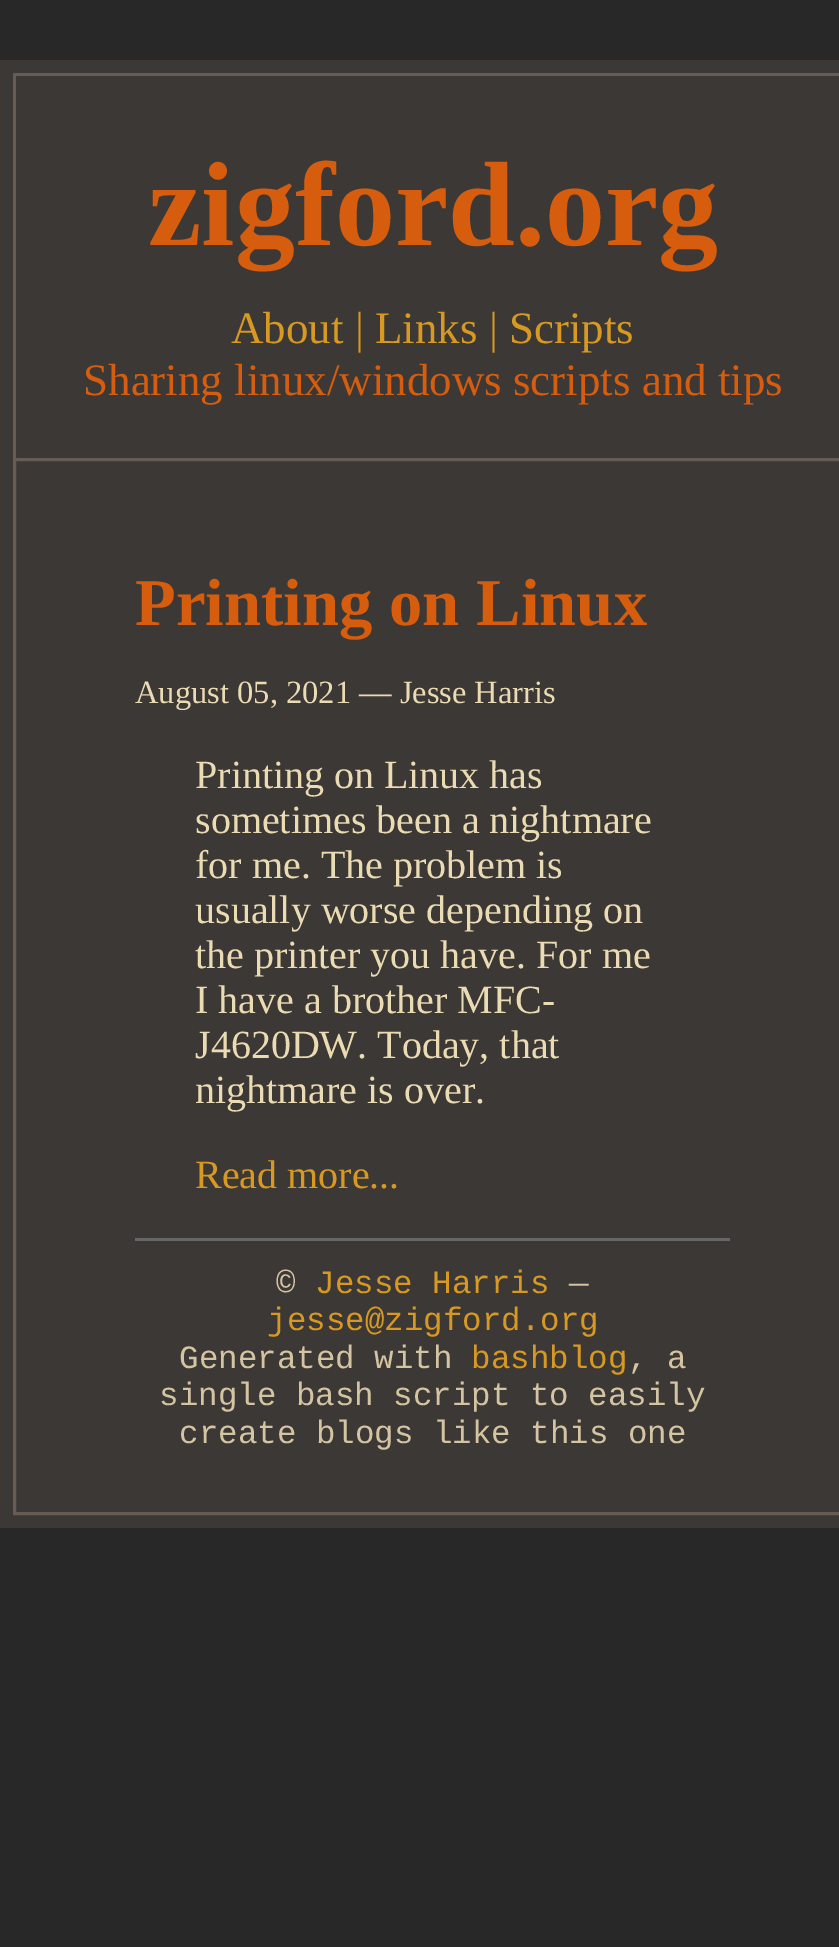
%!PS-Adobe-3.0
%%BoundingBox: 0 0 839 1947
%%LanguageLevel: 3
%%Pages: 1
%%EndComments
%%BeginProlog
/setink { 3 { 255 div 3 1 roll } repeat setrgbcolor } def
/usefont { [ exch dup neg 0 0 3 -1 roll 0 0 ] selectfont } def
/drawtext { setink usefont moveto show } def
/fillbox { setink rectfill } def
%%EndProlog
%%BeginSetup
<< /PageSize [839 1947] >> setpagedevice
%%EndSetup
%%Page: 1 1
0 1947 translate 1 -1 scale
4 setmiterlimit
0 0 839 1947 40 40 40 fillbox
0 60 839 1468 60 56 54 fillbox
13 73 826 3 102 92 84 fillbox
13 73 3 385 102 92 84 fillbox
(zigford.org) 148 245 /LiberationSerif-Bold 120 214 93 14 drawtext
(About | Links | Scripts) 231 343 /LiberationSerif-Regular 45 215 153 33 drawtext
(Sharing linux/windows scripts and tips) 83 395 /LiberationSerif-Regular 45 214 93 14 drawtext
102 92 84 setink
3 setlinewidth
14.5 459.5 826 1054 rectstroke
(Printing on Linux) 135 625 /LiberationSerif-Bold 66.75 214 93 14 drawtext
(August 05, 2021 — Jesse Harris) 135 703 /LiberationSerif-Regular 32.5 235 219 178 drawtext
(Printing on Linux has) 195 788 /LiberationSerif-Regular 40 235 219 178 drawtext
(sometimes been a nightmare) 195 833 /LiberationSerif-Regular 40 235 219 178 drawtext
(for me. The problem is) 195 878 /LiberationSerif-Regular 40 235 219 178 drawtext
(usually worse depending on) 195 923 /LiberationSerif-Regular 40 235 219 178 drawtext
(the printer you have. For me) 195 968 /LiberationSerif-Regular 40 235 219 178 drawtext
(I have a brother MFC-) 195 1013 /LiberationSerif-Regular 40 235 219 178 drawtext
(J4620DW. Today, that) 195 1058 /LiberationSerif-Regular 40 235 219 178 drawtext
(nightmare is over.) 195 1103 /LiberationSerif-Regular 40 235 219 178 drawtext
(Read more...) 195 1188 /LiberationSerif-Regular 40 215 153 33 drawtext
135 1238 595 3 102 102 102 fillbox
(©) 276 1293 /LiberationMono-Regular 32.5 213 196 161 drawtext
(Jesse Harris) 315 1293 /LiberationMono-Regular 32.5 215 153 33 drawtext
(—) 569 1293 /LiberationMono-Regular 32.5 213 196 161 drawtext
(jesse@zigford.org) 267 1330 /LiberationMono-Regular 32.5 215 153 33 drawtext
(Generated with) 179 1368 /LiberationMono-Regular 32.5 213 196 161 drawtext
(bashblog) 471 1368 /LiberationMono-Regular 32.5 215 153 33 drawtext
(, a) 628 1368 /LiberationMono-Regular 32.5 213 196 161 drawtext
(single bash script to easily) 159 1405 /LiberationMono-Regular 32.5 213 196 161 drawtext
(create blogs like this one) 179 1443 /LiberationMono-Regular 32.5 213 196 161 drawtext
showpage
%%EOF
